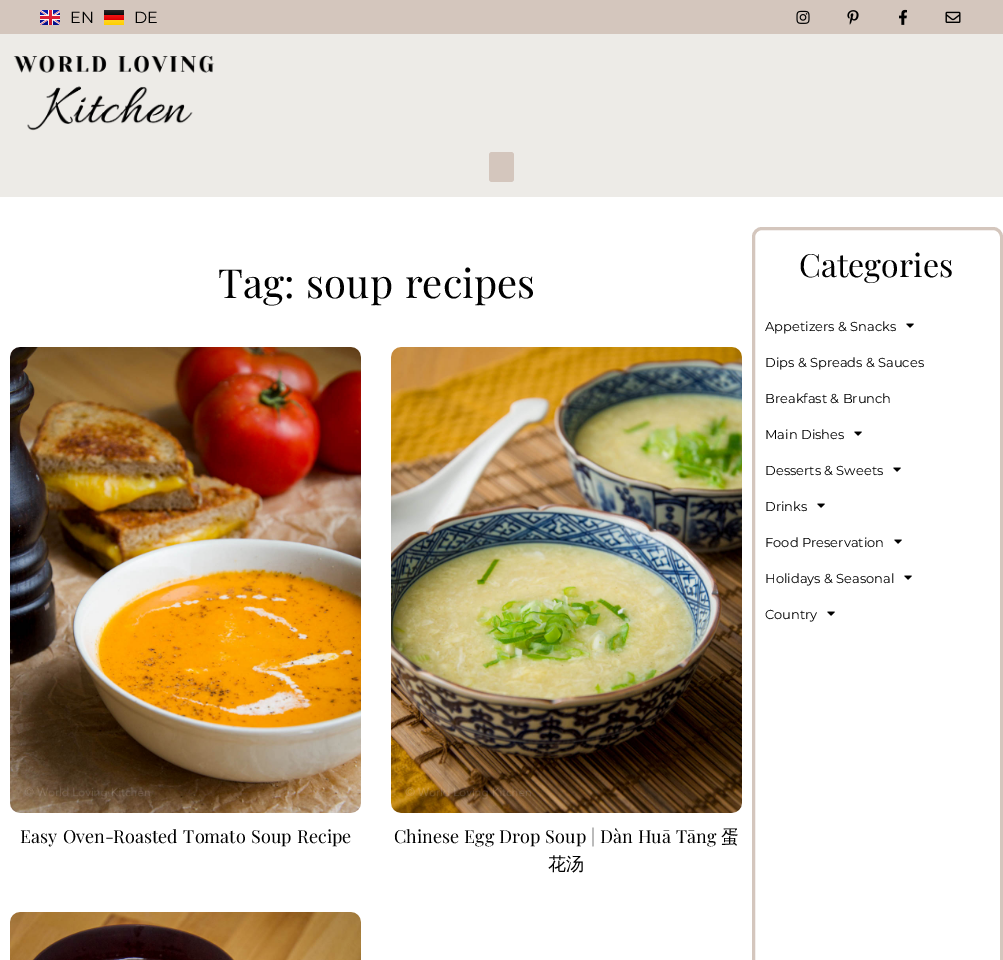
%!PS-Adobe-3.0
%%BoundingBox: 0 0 1003 960
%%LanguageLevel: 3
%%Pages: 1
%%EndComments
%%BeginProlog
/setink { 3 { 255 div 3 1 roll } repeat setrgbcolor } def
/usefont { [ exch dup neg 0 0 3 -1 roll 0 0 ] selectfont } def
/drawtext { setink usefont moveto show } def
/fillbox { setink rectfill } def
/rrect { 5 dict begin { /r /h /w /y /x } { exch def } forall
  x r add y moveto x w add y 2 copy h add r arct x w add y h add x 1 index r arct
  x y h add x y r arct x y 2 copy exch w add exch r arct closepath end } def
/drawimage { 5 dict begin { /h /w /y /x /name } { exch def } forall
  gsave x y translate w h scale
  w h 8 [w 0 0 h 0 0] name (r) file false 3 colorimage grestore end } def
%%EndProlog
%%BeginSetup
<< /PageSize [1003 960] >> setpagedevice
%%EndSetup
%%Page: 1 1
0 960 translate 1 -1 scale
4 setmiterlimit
0 0 1003 960 255 255 255 fillbox
0 0 1003 34 212 198 189 fillbox
(assets/img1.rgb) 40 10 20 15 drawimage
(EN) 70 23 /Montserrat-Regular 16 0 0 0 drawtext
gsave 104 10 moveto 124 10 lineto 124 15 lineto 104 15 lineto closepath clip newpath
<< /ShadingType 2 /ColorSpace /DeviceRGB /Coords [114 10 114 15] /Extend [true true] /Function << /FunctionType 2 /Domain [0 1] /C0 [0.149 0.149 0.149] /C1 [0.051 0.051 0.051] /N 1 >> >> shfill grestore
gsave 104 15 moveto 124 15 lineto 124 20 lineto 104 20 lineto closepath clip newpath
<< /ShadingType 2 /ColorSpace /DeviceRGB /Coords [114 15 114 20] /Extend [true true] /Function << /FunctionType 2 /Domain [0 1] /C0 [0.941 0.082 0.082] /C1 [0.871 0 0] /N 1 >> >> shfill grestore
gsave 104 20 moveto 124 20 lineto 124 25 lineto 104 25 lineto closepath clip newpath
<< /ShadingType 2 /ColorSpace /DeviceRGB /Coords [114 20 114 25] /Extend [true true] /Function << /FunctionType 2 /Domain [0 1] /C0 [1 0.835 0.129] /C1 [1 0.812 0] /N 1 >> >> shfill grestore
(DE) 134 23 /Montserrat-Regular 16 0 0 0 drawtext
(assets/img2.rgb) 796 10 14 14 drawimage
(assets/img3.rgb) 847 10 12 15 drawimage
(assets/img4.rgb) 899 9 8 16 drawimage
(assets/img5.rgb) 945 11 16 12 drawimage
0 34 1003 163 237 235 231 fillbox
(assets/img6.rgb) 13 55 202 76 drawimage
212 198 189 setink
489 152 25 30 3 rrect fill
/PlayfairDisplay-Regular 40 usefont
0 0 0 setink
218 298 moveto 2 0 32 (Tag: soup recipes) widthshow
(assets/img7.rgb) 10 347 351 466 drawimage
/PlayfairDisplay-Regular 18 usefont
20 843 moveto 1 0 32 (Easy Oven-Roasted Tomato Soup Recipe) widthshow
(assets/img8.rgb) 391 347 351 466 drawimage
394 843 moveto 0.5 0 32 (Chinese Egg Drop Soup | Dàn Huā Tāng) widthshow
(蛋) 721 843 /WenQuanYiZenHei-Medium 18 0 0 0 drawtext
(花汤) 548 870 /WenQuanYiZenHei-Medium 18 0 0 0 drawtext
(assets/img9.rgb) 10 912 351 48 drawimage
212 198 189 setink
3 setlinewidth
753.5 228.5 248 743 8.5 rrect stroke
(Categories) 799 277 /PlayfairDisplay-Regular 32 0 0 0 drawtext
(Appetizers & Snacks) 765 331 /Montserrat-Regular 13 0 0 0 drawtext
(assets/img10.rgb) 906 323 8 5 drawimage
(Dips & Spreads & Sauces) 765 367 /Montserrat-Regular 13 0 0 0 drawtext
(Breakfast & Brunch) 765 403 /Montserrat-Regular 13 0 0 0 drawtext
(Main Dishes) 765 439 /Montserrat-Regular 13 0 0 0 drawtext
(assets/img10.rgb) 854 431 8 5 drawimage
(Desserts & Sweets) 765 475 /Montserrat-Regular 13 0 0 0 drawtext
(assets/img10.rgb) 893 467 8 5 drawimage
(Drinks) 765 511 /Montserrat-Regular 13 0 0 0 drawtext
(assets/img10.rgb) 817 503 8 5 drawimage
(Food Preservation) 765 547 /Montserrat-Regular 13 0 0 0 drawtext
(assets/img10.rgb) 894 539 8 5 drawimage
(Holidays & Seasonal) 765 583 /Montserrat-Regular 13 0 0 0 drawtext
(assets/img10.rgb) 904 575 8 5 drawimage
(Country) 765 619 /Montserrat-Regular 13 0 0 0 drawtext
(assets/img10.rgb) 827 611 8 5 drawimage
showpage
%%EOF
